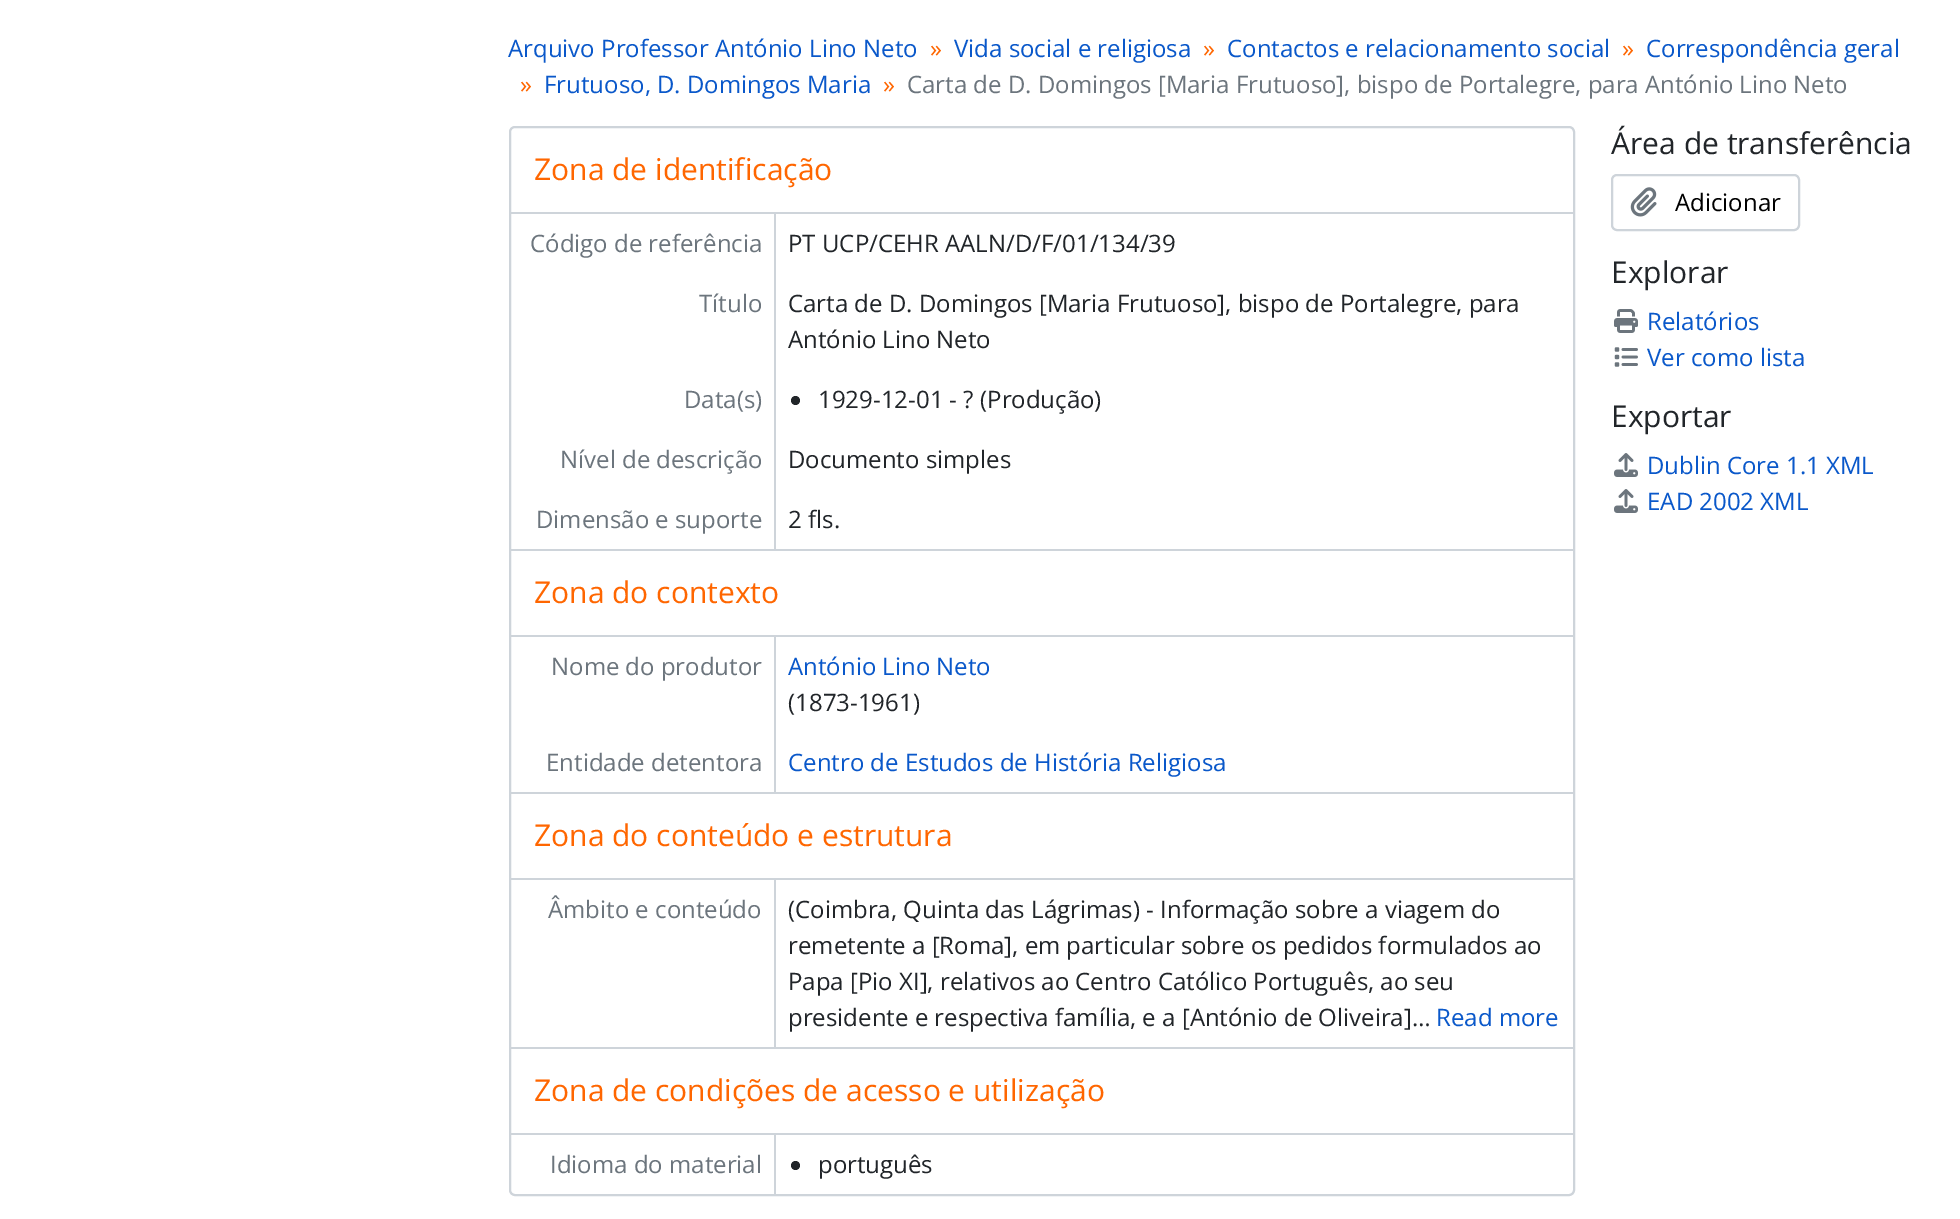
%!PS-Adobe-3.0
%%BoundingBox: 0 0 1960 1219
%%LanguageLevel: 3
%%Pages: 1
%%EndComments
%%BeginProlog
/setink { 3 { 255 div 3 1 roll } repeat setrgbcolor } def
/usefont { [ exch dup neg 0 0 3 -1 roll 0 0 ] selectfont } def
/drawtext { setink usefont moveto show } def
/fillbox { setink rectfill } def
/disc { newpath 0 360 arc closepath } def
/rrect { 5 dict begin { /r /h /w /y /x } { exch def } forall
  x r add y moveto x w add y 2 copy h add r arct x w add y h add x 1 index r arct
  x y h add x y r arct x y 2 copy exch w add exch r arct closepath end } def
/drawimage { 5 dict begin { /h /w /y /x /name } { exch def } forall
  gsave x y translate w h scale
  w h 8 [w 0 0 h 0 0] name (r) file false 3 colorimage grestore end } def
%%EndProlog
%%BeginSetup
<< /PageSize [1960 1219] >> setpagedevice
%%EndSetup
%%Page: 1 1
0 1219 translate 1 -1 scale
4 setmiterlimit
0 0 1960 1219 255 255 255 fillbox
(Arquivo Professor António Lino Neto) 508 57 /OpenSans-Regular 24 10 88 202 drawtext
(») 930 57 /OpenSans-Regular 24 255 102 0 drawtext
(Vida social e religiosa) 954 57 /OpenSans-Regular 24 10 88 202 drawtext
(») 1203 57 /OpenSans-Regular 24 255 102 0 drawtext
(Contactos e relacionamento social) 1227 57 /OpenSans-Regular 24 10 88 202 drawtext
(») 1622 57 /OpenSans-Regular 24 255 102 0 drawtext
(Correspondência geral) 1646 57 /OpenSans-Regular 24 10 88 202 drawtext
(») 520 93 /OpenSans-Regular 24 255 102 0 drawtext
(Frutuoso, D. Domingos Maria) 544 93 /OpenSans-Regular 24 10 88 202 drawtext
(») 883 93 /OpenSans-Regular 24 255 102 0 drawtext
(Carta de D. Domingos [Maria Frutuoso], bispo de Portalegre, para António Lino Neto) 907 93 /OpenSans-Regular 24 108 117 125 drawtext
206 212 218 setink
2 setlinewidth
510 127 1064 1068 5 rrect stroke
510 549 1064 2 206 212 218 fillbox
510 212 1064 2 206 212 218 fillbox
(Zona de identificação) 534 180 /OpenSans-Regular 30 255 102 0 drawtext
774 213 2 336 206 212 218 fillbox
(Código de referência) 530 252 /OpenSans-Regular 24 108 117 125 drawtext
(PT UCP/CEHR AALN/D/F/01/134/39) 788 252 /OpenSans-Regular 24 33 37 41 drawtext
(Título) 699 312 /OpenSans-Regular 24 108 117 125 drawtext
(Carta de D. Domingos [Maria Frutuoso], bispo de Portalegre, para) 788 312 /OpenSans-Regular 24 33 37 41 drawtext
(António Lino Neto) 788 348 /OpenSans-Regular 24 33 37 41 drawtext
(Data\(s\)) 684 408 /OpenSans-Regular 24 108 117 125 drawtext
33 37 41 setink
795.5 400.5 4.5 disc fill
(1929-12-01 - ? \(Produção\)) 818 408 /OpenSans-Regular 24 33 37 41 drawtext
(Nível de descrição) 560 468 /OpenSans-Regular 24 108 117 125 drawtext
(Documento simples) 788 468 /OpenSans-Regular 24 33 37 41 drawtext
(Dimensão e suporte) 536 528 /OpenSans-Regular 24 108 117 125 drawtext
(2 fls.) 788 528 /OpenSans-Regular 24 33 37 41 drawtext
510 792 1064 2 206 212 218 fillbox
510 635 1064 2 206 212 218 fillbox
(Zona do contexto) 534 603 /OpenSans-Regular 30 255 102 0 drawtext
774 636 2 156 206 212 218 fillbox
(Nome do produtor) 551 675 /OpenSans-Regular 24 108 117 125 drawtext
(António Lino Neto) 788 675 /OpenSans-Regular 24 10 88 202 drawtext
(\(1873-1961\)) 788 711 /OpenSans-Regular 24 33 37 41 drawtext
(Entidade detentora) 546 771 /OpenSans-Regular 24 108 117 125 drawtext
(Centro de Estudos de História Religiosa) 788 771 /OpenSans-Regular 24 10 88 202 drawtext
510 1047 1064 2 206 212 218 fillbox
510 878 1064 2 206 212 218 fillbox
(Zona do conteúdo e estrutura) 534 846 /OpenSans-Regular 30 255 102 0 drawtext
774 879 2 168 206 212 218 fillbox
(Âmbito e conteúdo) 548 918 /OpenSans-Regular 24 108 117 125 drawtext
(\(Coimbra, Quinta das Lágrimas\) - Informação sobre a viagem do) 788 918 /OpenSans-Regular 24 33 37 41 drawtext
(remetente a [Roma], em particular sobre os pedidos formulados ao) 788 954 /OpenSans-Regular 24 33 37 41 drawtext
(Papa [Pio XI], relativos ao Centro Católico Português, ao seu) 788 990 /OpenSans-Regular 24 33 37 41 drawtext
(presidente e respectiva família, e a [António de Oliveira]…) 788 1026 /OpenSans-Regular 24 33 37 41 drawtext
(Read more) 1436 1026 /OpenSans-Regular 24 10 88 202 drawtext
510 1133 1064 2 206 212 218 fillbox
(Zona de condições de acesso e utilização) 534 1101 /OpenSans-Regular 30 255 102 0 drawtext
774 1134 2 60 206 212 218 fillbox
(Idioma do material) 550 1173 /OpenSans-Regular 24 108 117 125 drawtext
33 37 41 setink
795.5 1165.5 4.5 disc fill
(português) 818 1173 /OpenSans-Regular 24 33 37 41 drawtext
(Área de transferência) 1611 154 /OpenSans-Regular 30 33 37 41 drawtext
206 212 218 setink
1612 175 187 55 5 rrect stroke
(assets/img1.rgb) 1630 187 27 30 drawimage
(Adicionar) 1675 211 /OpenSans-Regular 24 0 0 0 drawtext
(Explorar) 1611 283 /OpenSans-Regular 30 33 37 41 drawtext
(assets/img2.rgb) 1614 309 24 24 drawimage
(Relatórios) 1647 330 /OpenSans-Regular 24 10 88 202 drawtext
(assets/img3.rgb) 1614 347 24 20 drawimage
(Ver como lista) 1647 366 /OpenSans-Regular 24 10 88 202 drawtext
(Exportar) 1611 427 /OpenSans-Regular 30 33 37 41 drawtext
(assets/img4.rgb) 1614 453 24 24 drawimage
(Dublin Core 1.1 XML) 1647 474 /OpenSans-Regular 24 10 88 202 drawtext
(assets/img4.rgb) 1614 489 24 24 drawimage
(EAD 2002 XML) 1647 510 /OpenSans-Regular 24 10 88 202 drawtext
showpage
%%EOF
